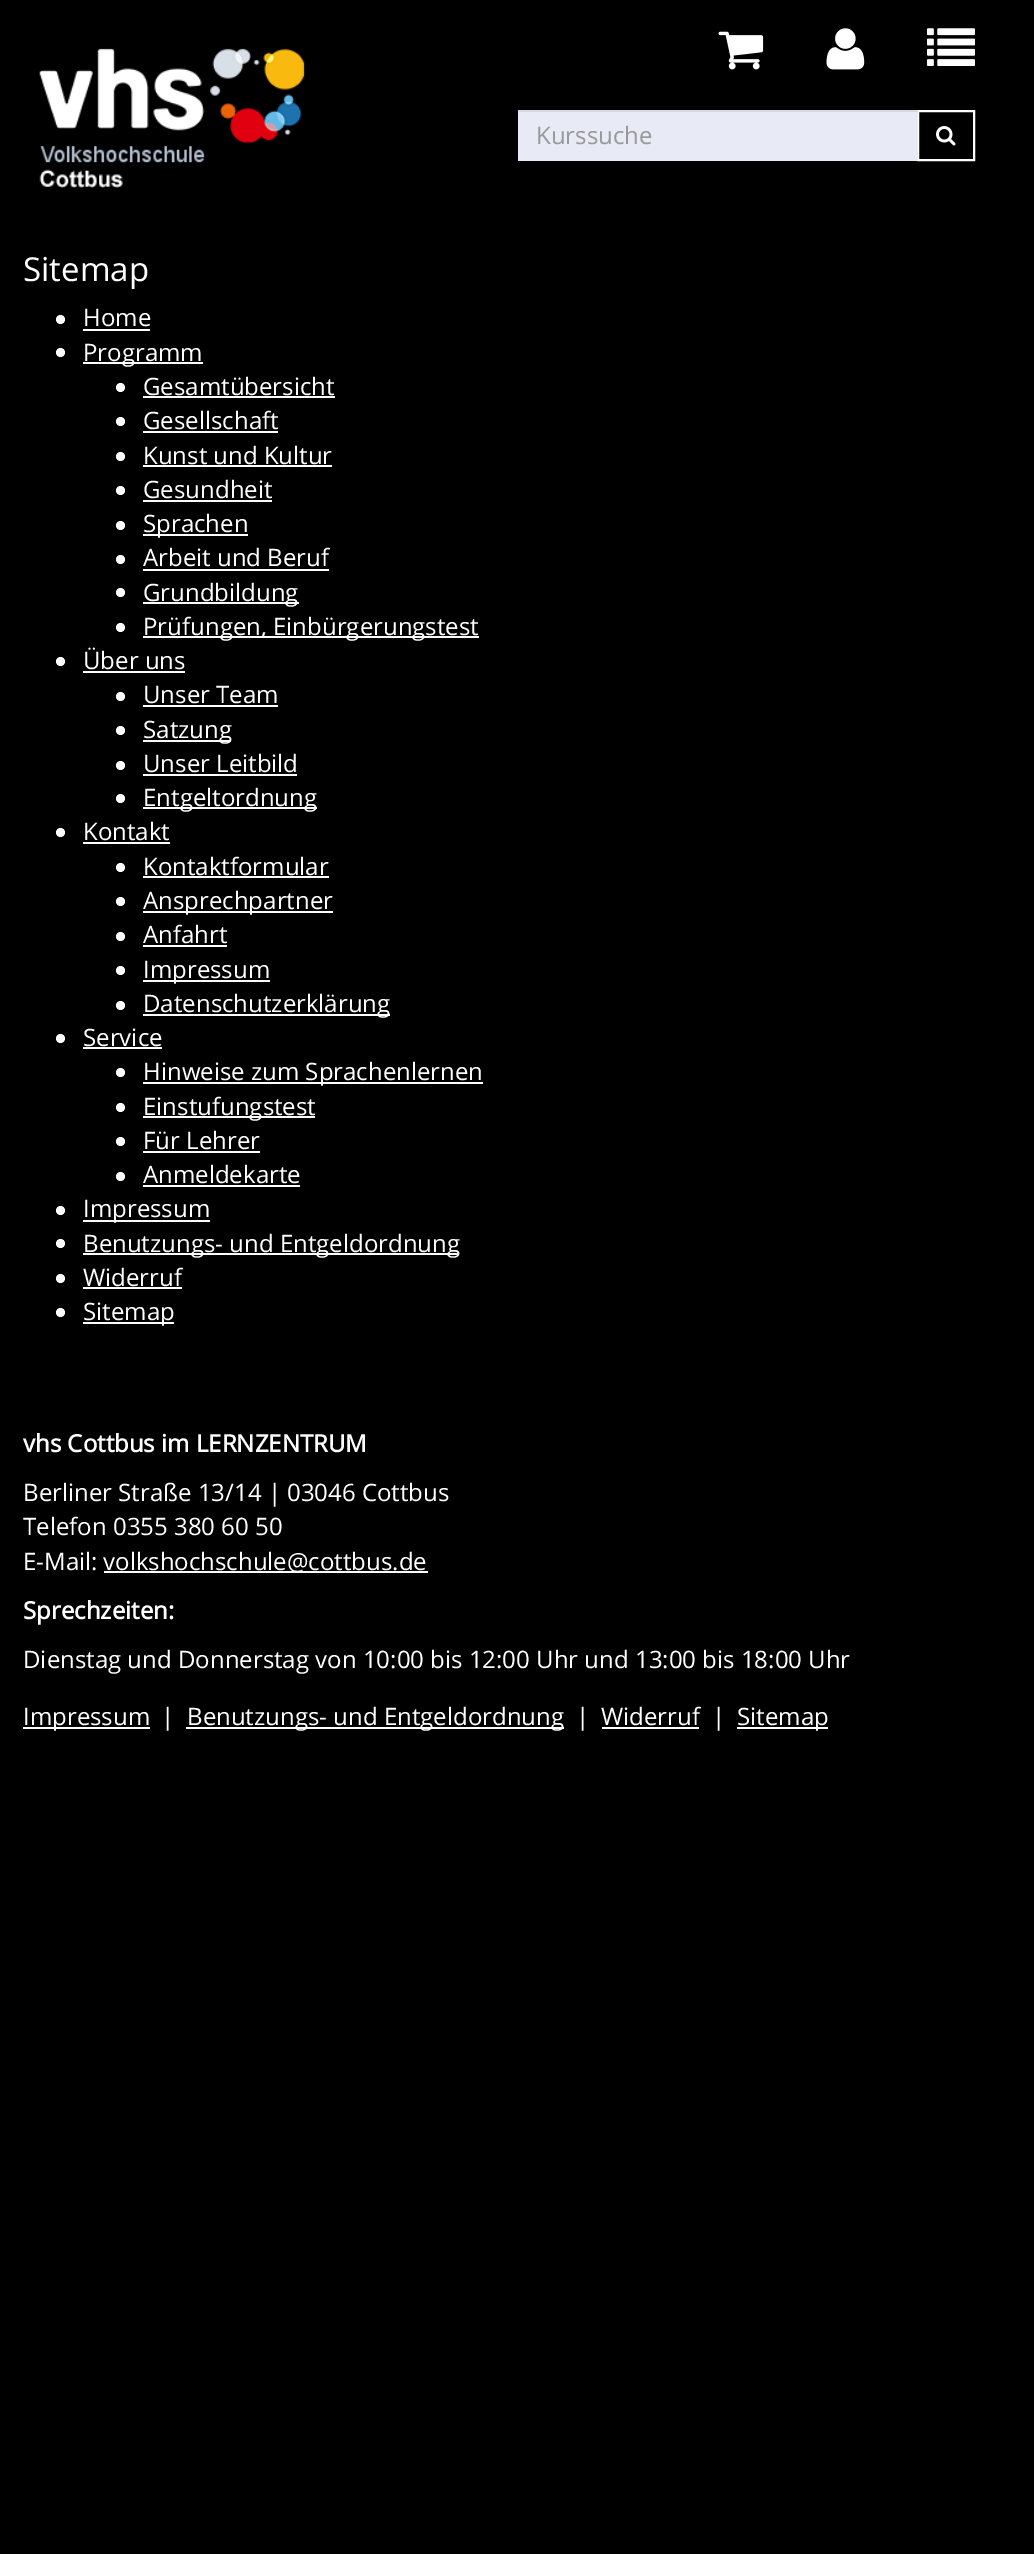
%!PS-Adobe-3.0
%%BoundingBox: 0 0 1034 2554
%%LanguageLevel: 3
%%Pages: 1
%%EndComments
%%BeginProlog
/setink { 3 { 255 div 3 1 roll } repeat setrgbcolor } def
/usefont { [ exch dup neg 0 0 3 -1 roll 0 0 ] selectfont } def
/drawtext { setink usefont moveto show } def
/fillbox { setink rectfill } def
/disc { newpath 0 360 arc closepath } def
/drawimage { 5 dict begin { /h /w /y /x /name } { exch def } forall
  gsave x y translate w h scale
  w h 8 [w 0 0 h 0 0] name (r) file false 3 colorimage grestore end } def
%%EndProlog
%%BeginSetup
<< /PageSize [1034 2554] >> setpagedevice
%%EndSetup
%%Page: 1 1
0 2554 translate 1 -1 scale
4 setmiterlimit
0 0 1034 2554 0 0 0 fillbox
(assets/img1.rgb) 39 48 266 140 drawimage
(assets/img2.rgb) 718 31 46 39 drawimage
(assets/img3.rgb) 826 28 39 42 drawimage
(assets/img4.rgb) 927 28 48 38 drawimage
255 255 255 setink
2 setlinewidth
918 111 56 49 rectstroke
518 112 400 49 232 234 246 fillbox
518 110 400 2 215 216 228 fillbox
(Kurssuche) 536 144 /OpenSans-Regular 24 153 153 153 drawtext
(assets/img5.rgb) 936 126 20 20 drawimage
(Sitemap) 23 281 /OpenSans-Regular 33 255 255 255 drawtext
60.5 319.5 4.5 disc fill
(Home) 83 326 /OpenSans-Regular 24 255 255 255 drawtext
83 329 67 2 255 255 255 fillbox
60.5 352.5 4.5 disc fill
83 362 120 2 255 255 255 fillbox
(Programm) 83 361 /OpenSans-Regular 24 255 255 255 drawtext
120.5 387.5 4.5 disc fill
(Gesamtübersicht) 143 395 /OpenSans-Regular 24 255 255 255 drawtext
143 396 192 2 255 255 255 fillbox
120.5 421.5 4.5 disc fill
(Gesellschaft) 143 429 /OpenSans-Regular 24 255 255 255 drawtext
143 431 135 2 255 255 255 fillbox
120.5 456.5 4.5 disc fill
(Kunst und Kultur) 143 464 /OpenSans-Regular 24 255 255 255 drawtext
143 465 189 2 255 255 255 fillbox
120.5 490.5 4.5 disc fill
(Gesundheit) 143 498 /OpenSans-Regular 24 255 255 255 drawtext
143 500 129 2 255 255 255 fillbox
120.5 525.5 4.5 disc fill
143 534 105 2 255 255 255 fillbox
(Sprachen) 143 532 /OpenSans-Regular 24 255 255 255 drawtext
120.5 559.5 4.5 disc fill
(Arbeit und Beruf) 143 566 /OpenSans-Regular 24 255 255 255 drawtext
143 569 186 2 255 255 255 fillbox
120.5 592.5 4.5 disc fill
143 602 156 2 255 255 255 fillbox
(Grundbildung) 143 601 /OpenSans-Regular 24 255 255 255 drawtext
120.5 627.5 4.5 disc fill
143 636 336 2 255 255 255 fillbox
(Prüfungen, Einbürgerungstest) 143 635 /OpenSans-Regular 24 255 255 255 drawtext
60.5 661.5 4.5 disc fill
(Über uns) 83 669 /OpenSans-Regular 24 255 255 255 drawtext
83 671 102 2 255 255 255 fillbox
120.5 696.5 4.5 disc fill
(Unser Team) 143 703 /OpenSans-Regular 24 255 255 255 drawtext
143 705 135 2 255 255 255 fillbox
120.5 730.5 4.5 disc fill
143 740 88 2 255 255 255 fillbox
(Satzung) 143 738 /OpenSans-Regular 24 255 255 255 drawtext
120.5 765.5 4.5 disc fill
(Unser Leitbild) 143 772 /OpenSans-Regular 24 255 255 255 drawtext
143 774 154 2 255 255 255 fillbox
120.5 798.5 4.5 disc fill
143 807 174 2 255 255 255 fillbox
(Entgeltordnung) 143 806 /OpenSans-Regular 24 255 255 255 drawtext
60.5 832.5 4.5 disc fill
(Kontakt) 83 840 /OpenSans-Regular 24 255 255 255 drawtext
83 842 87 2 255 255 255 fillbox
120.5 867.5 4.5 disc fill
(Kontaktformular) 143 875 /OpenSans-Regular 24 255 255 255 drawtext
143 876 186 2 255 255 255 fillbox
120.5 901.5 4.5 disc fill
143 911 190 2 255 255 255 fillbox
(Ansprechpartner) 143 909 /OpenSans-Regular 24 255 255 255 drawtext
120.5 936.5 4.5 disc fill
(Anfahrt) 143 943 /OpenSans-Regular 24 255 255 255 drawtext
143 945 84 2 255 255 255 fillbox
120.5 970.5 4.5 disc fill
143 980 127 2 255 255 255 fillbox
(Impressum) 143 978 /OpenSans-Regular 24 255 255 255 drawtext
120.5 1005.5 4.5 disc fill
143 1014 247 2 255 255 255 fillbox
(Datenschutzerklärung) 143 1012 /OpenSans-Regular 24 255 255 255 drawtext
60.5 1038.5 4.5 disc fill
(Service) 83 1046 /OpenSans-Regular 24 255 255 255 drawtext
83 1047 79 2 255 255 255 fillbox
120.5 1072.5 4.5 disc fill
143 1082 340 2 255 255 255 fillbox
(Hinweise zum Sprachenlernen) 143 1080 /OpenSans-Regular 24 255 255 255 drawtext
120.5 1107.5 4.5 disc fill
143 1116 172 2 255 255 255 fillbox
(Einstufungstest) 143 1115 /OpenSans-Regular 24 255 255 255 drawtext
120.5 1141.5 4.5 disc fill
(Für Lehrer) 143 1149 /OpenSans-Regular 24 255 255 255 drawtext
143 1151 117 2 255 255 255 fillbox
120.5 1176.5 4.5 disc fill
(Anmeldekarte) 143 1183 /OpenSans-Regular 24 255 255 255 drawtext
143 1185 157 2 255 255 255 fillbox
60.5 1210.5 4.5 disc fill
83 1220 127 2 255 255 255 fillbox
(Impressum) 83 1217 /OpenSans-Regular 24 255 255 255 drawtext
60.5 1243.5 4.5 disc fill
83 1253 376 2 255 255 255 fillbox
(Benutzungs- und Entgeldordnung) 83 1252 /OpenSans-Regular 24 255 255 255 drawtext
60.5 1278.5 4.5 disc fill
(Widerruf) 83 1286 /OpenSans-Regular 24 255 255 255 drawtext
83 1287 99 2 255 255 255 fillbox
60.5 1312.5 4.5 disc fill
83 1322 91 2 255 255 255 fillbox
(Sitemap) 83 1320 /OpenSans-Regular 24 255 255 255 drawtext
(vhs Cottbus im LERNZENTRUM) 23 1452 /OpenSans-Bold 24 255 255 255 drawtext
(Berliner Straße 13/14 | 03046 Cottbus) 23 1501 /OpenSans-Regular 24 255 255 255 drawtext
(Telefon 0355 380 60 50) 23 1535 /OpenSans-Regular 24 255 255 255 drawtext
(E-Mail:) 23 1570 /OpenSans-Regular 24 255 255 255 drawtext
104 1571 324 2 255 255 255 fillbox
(volkshochschule@cottbus.de) 103 1570 /OpenSans-Regular 24 255 255 255 drawtext
(Sprechzeiten:) 23 1619 /OpenSans-Bold 24 255 255 255 drawtext
(Dienstag und Donnerstag von 10:00 bis 12:00 Uhr und 13:00 bis 18:00 Uhr) 23 1668 /OpenSans-Regular 24 255 255 255 drawtext
23 1727 127 2 255 255 255 fillbox
(Impressum) 23 1725 /OpenSans-Regular 24 255 255 255 drawtext
(|) 161 1725 /OpenSans-Regular 24 255 255 255 drawtext
186 1727 378 2 255 255 255 fillbox
(Benutzungs- und Entgeldordnung) 187 1725 /OpenSans-Regular 24 255 255 255 drawtext
(|) 576 1725 /OpenSans-Regular 24 255 255 255 drawtext
(Widerruf) 601 1725 /OpenSans-Regular 24 255 255 255 drawtext
602 1727 97 2 255 255 255 fillbox
(|) 712 1725 /OpenSans-Regular 24 255 255 255 drawtext
737 1727 91 2 255 255 255 fillbox
(Sitemap) 737 1725 /OpenSans-Regular 24 255 255 255 drawtext
showpage
%%EOF
